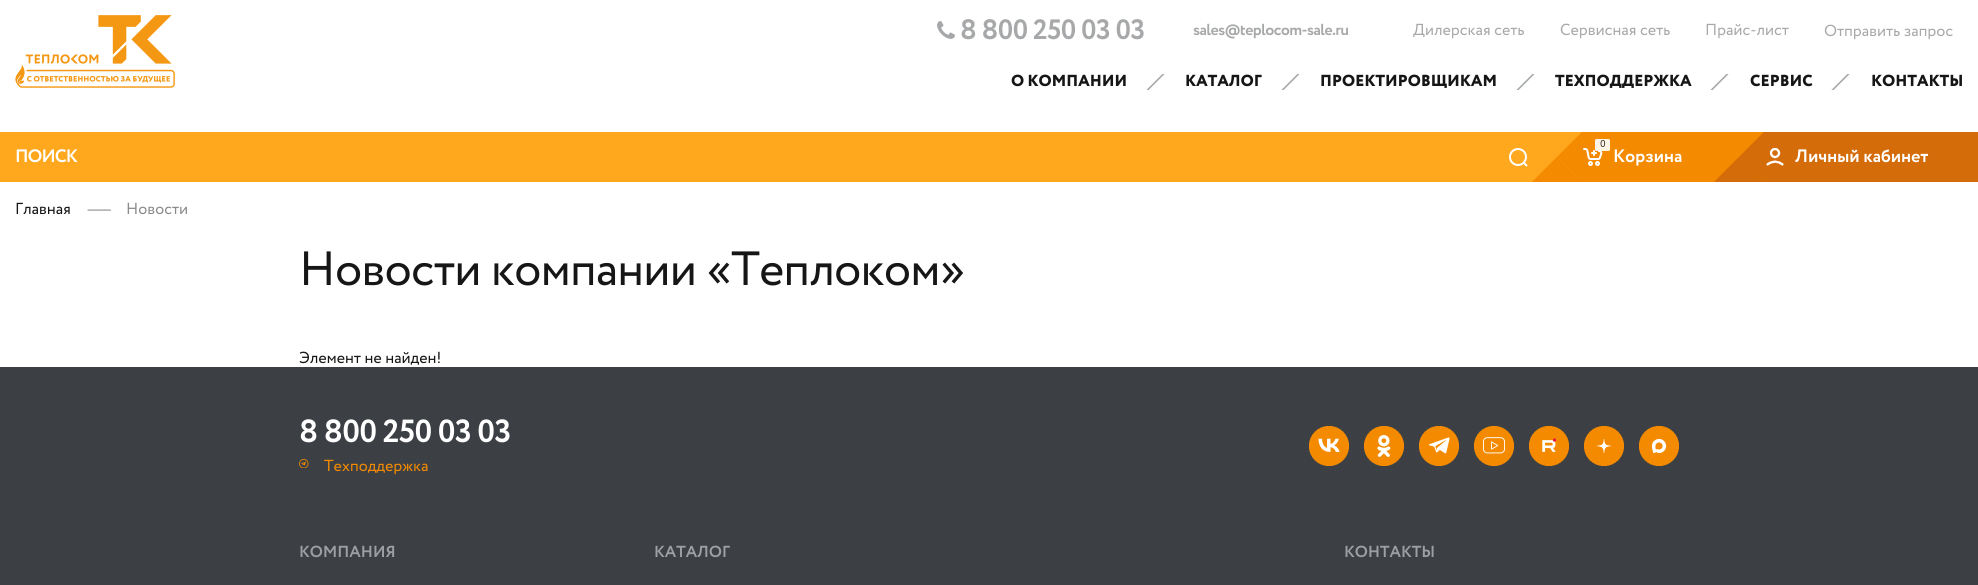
%!PS-Adobe-3.0
%%BoundingBox: 0 0 1978 585
%%LanguageLevel: 3
%%Pages: 1
%%EndComments
%%BeginProlog
/setink { 3 { 255 div 3 1 roll } repeat setrgbcolor } def
/fillbox { setink rectfill } def
/setalpha { dup .setfillconstantalpha .setstrokeconstantalpha } def
/disc { newpath 0 360 arc closepath } def
/rrect { 5 dict begin { /r /h /w /y /x } { exch def } forall
  x r add y moveto x w add y 2 copy h add r arct x w add y h add x 1 index r arct
  x y h add x y r arct x y 2 copy exch w add exch r arct closepath end } def
/drawimage { 5 dict begin { /h /w /y /x /name } { exch def } forall
  gsave x y translate w h scale
  w h 8 [w 0 0 h 0 0] name (r) file false 3 colorimage grestore end } def
%%EndProlog
%%BeginSetup
<< /PageSize [1978 585] /PageUsesTransparency true >> setpagedevice
%%EndSetup
%%Page: 1 1
0 .pushpdf14devicefilter
0 585 translate 1 -1 scale
4 setmiterlimit
0 0 1978 585 255 255 255 fillbox
(assets/img1.rgb) 15 15 160 73 drawimage
(assets/img2.rgb) 937 21 18 18 drawimage
(assets/img3.rgb) 961 19 183 21 drawimage
(assets/img4.rgb) 1193 23 155 16 drawimage
(assets/img5.rgb) 1413 23 111 16 drawimage
(assets/img6.rgb) 1560 23 110 16 drawimage
(assets/img7.rgb) 1706 23 83 16 drawimage
(assets/img8.rgb) 1824 24 129 16 drawimage
(assets/img9.rgb) 1011 74 115 13 drawimage
167 168 169 setink
1162.5 74 moveto 1164.5 74 lineto 1148.5 90 lineto 1146.5 90 lineto closepath fill
(assets/img10.rgb) 1186 74 76 13 drawimage
1297.5 74 moveto 1299.5 74 lineto 1283.5 90 lineto 1281.5 90 lineto closepath fill
(assets/img11.rgb) 1321 74 175 14 drawimage
1532.5 74 moveto 1534.5 74 lineto 1518.5 90 lineto 1516.5 90 lineto closepath fill
(assets/img12.rgb) 1555 74 137 14 drawimage
1726.5 74 moveto 1728.5 74 lineto 1712.5 90 lineto 1710.5 90 lineto closepath fill
(assets/img13.rgb) 1750 74 63 13 drawimage
1847.5 74 moveto 1849.5 74 lineto 1833.5 90 lineto 1831.5 90 lineto closepath fill
(assets/img14.rgb) 1872 74 90 13 drawimage
0 132 1581 50 255 168 30 fillbox
(assets/img15.rgb) 16 149 62 14 drawimage
(assets/img16.rgb) 1509 148 19 19 drawimage
1581 132 182 50 243 138 0 fillbox
1582 132 moveto 1582 182 lineto 1557 157 lineto closepath fill
1582 182 moveto 1532 182 lineto 1557 157 lineto closepath fill
(assets/img18.rgb) 1583 148 20 18 drawimage
0.9 setalpha
255 255 255 setink
1595 139 15 12 2 rrect fill
1 setalpha
(assets/img17.rgb) 1600 140 6 7 drawimage
(assets/img19.rgb) 1614 149 68 17 drawimage
1763 132 215 50 213 108 10 fillbox
1764 132 moveto 1764 182 lineto 1739 157 lineto closepath fill
1764 182 moveto 1714 182 lineto 1739 157 lineto closepath fill
255 255 255 setink
2 setlinewidth
1775 153 4 disc stroke
1783 165 moveto 1778.5 160.5 1771.5 160.5 1767 165 curveto stroke
(assets/img20.rgb) 1795 149 134 14 drawimage
(assets/img21.rgb) 16 202 54 13 drawimage
153 156 157 setink
1 setlinewidth
1 setlinecap
88 210 moveto 110.5 210 lineto stroke
(assets/img22.rgb) 127 202 60 13 drawimage
(assets/img23.rgb) 304 251 659 35 drawimage
(assets/img24.rgb) 299 351 141 14 drawimage
0 367 1978 218 60 63 68 fillbox
(assets/img25.rgb) 300 419 210 24 drawimage
(assets/img26.rgb) 299 459 10 9 drawimage
(assets/img27.rgb) 324 459 104 16 drawimage
243 138 0 setink
1329 446 20 disc fill
(assets/img28.rgb) 1318 438 22 14 drawimage
1384 446 20 disc fill
(assets/img29.rgb) 1377 435 14 22 drawimage
1439 446 20 disc fill
(assets/img30.rgb) 1428 437 22 17 drawimage
1494 446 20 disc fill
(assets/img31.rgb) 1483 437 22 17 drawimage
1549 446 20 disc fill
(assets/img32.rgb) 1542 438 15 14 drawimage
1604 446 20 disc fill
(assets/img33.rgb) 1597 439 14 14 drawimage
1659 446 20 disc fill
(assets/img34.rgb) 1651 438 16 15 drawimage
(assets/img35.rgb) 300 545 95 13 drawimage
(assets/img36.rgb) 655 545 75 13 drawimage
(assets/img37.rgb) 1345 545 89 13 drawimage
.poppdf14devicefilter showpage
%%EOF
